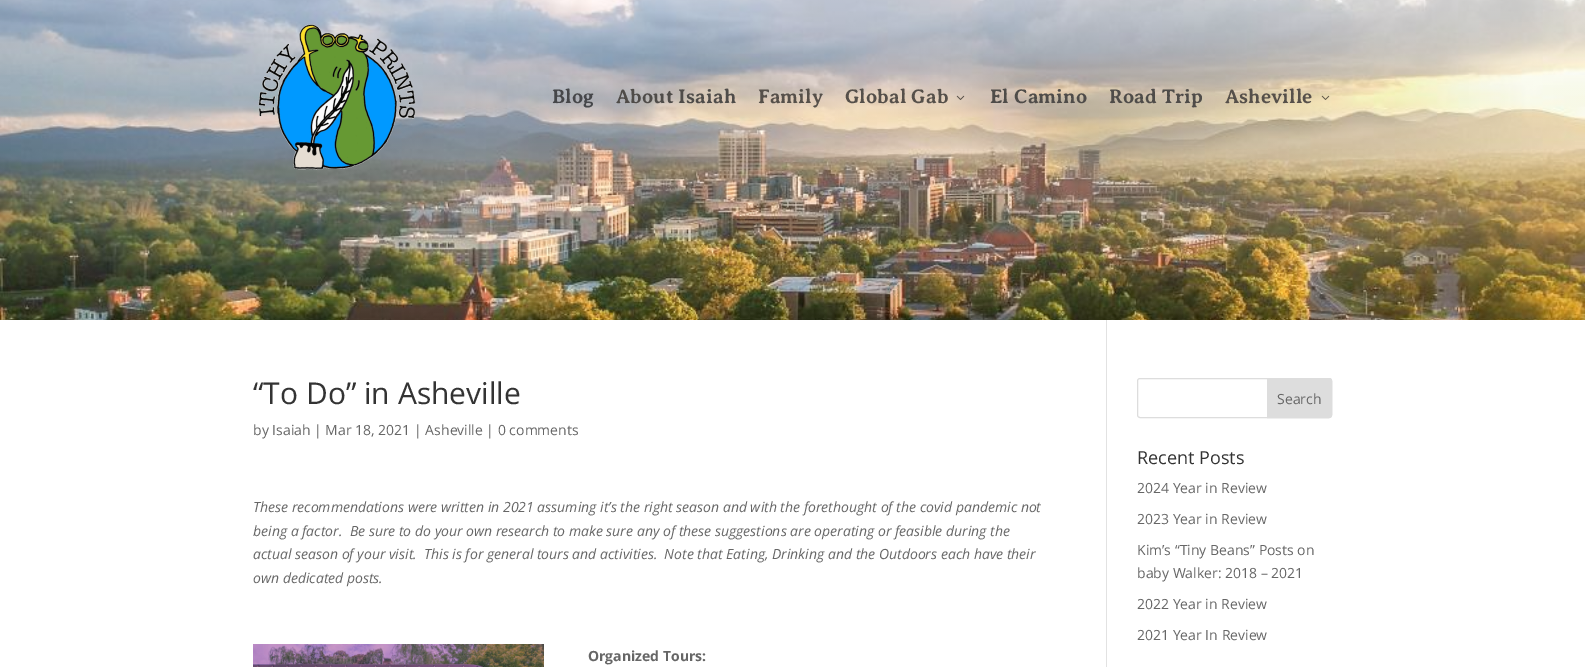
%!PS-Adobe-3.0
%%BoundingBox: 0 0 1585 667
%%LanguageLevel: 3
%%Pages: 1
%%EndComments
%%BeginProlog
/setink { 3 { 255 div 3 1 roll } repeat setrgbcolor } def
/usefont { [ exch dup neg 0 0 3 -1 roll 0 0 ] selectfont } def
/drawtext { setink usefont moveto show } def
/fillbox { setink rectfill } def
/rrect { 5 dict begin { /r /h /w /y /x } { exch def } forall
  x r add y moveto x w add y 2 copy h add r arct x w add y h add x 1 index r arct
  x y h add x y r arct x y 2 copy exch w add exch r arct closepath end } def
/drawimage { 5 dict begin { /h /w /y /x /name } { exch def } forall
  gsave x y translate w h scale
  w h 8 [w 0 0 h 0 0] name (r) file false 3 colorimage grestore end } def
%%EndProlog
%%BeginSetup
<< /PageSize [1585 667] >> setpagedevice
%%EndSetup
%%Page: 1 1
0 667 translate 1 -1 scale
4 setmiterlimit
0 0 1585 667 255 255 255 fillbox
(assets/img1.rgb) 0 0 1585 320 drawimage
(assets/img2.rgb) 258 24 158 146 drawimage
(Blog) 552 103 /AveriaSerifLibre-Bold 20 70 71 74 drawtext
(About Isaiah) 616 103 /AveriaSerifLibre-Bold 20 79 76 73 drawtext
(Family) 758 103 /AveriaSerifLibre-Bold 20 86 80 74 drawtext
(Global Gab) 845 103 /AveriaSerifLibre-Bold 20 86 80 74 drawtext
(assets/img3.rgb) 956 95 9 5 drawimage
(El Camino) 990 103 /AveriaSerifLibre-Bold 20 79 76 73 drawtext
(Road Trip) 1109 103 /AveriaSerifLibre-Bold 20 79 76 73 drawtext
(Asheville) 1225 103 /AveriaSerifLibre-Bold 20 86 80 74 drawtext
(assets/img4.rgb) 1321 95 9 5 drawimage
1106 320 1 347 226 226 226 fillbox
(“To Do” in Asheville) 253 404 /OpenSans-Regular 30 51 51 51 drawtext
(by Isaiah | Mar 18, 2021 | Asheville | 0 comments) 253 435 /OpenSans-Regular 14 102 102 102 drawtext
(These recommendations were written in 2021 assuming it’s the right season and with the forethought of the covid pandemic not) 253 512 /OpenSans-Italic 14 102 102 102 drawtext
(being a factor.  Be sure to do your own research to make sure any of these suggestions are operating or feasible during the) 253 536 /OpenSans-Italic 14 102 102 102 drawtext
(actual season of your visit.  This is for general tours and activities.  Note that Eating, Drinking and the Outdoors each have their) 253 559 /OpenSans-Italic 14 102 102 102 drawtext
(own dedicated posts.) 253 583 /OpenSans-Italic 14 102 102 102 drawtext
(assets/img5.rgb) 253 644 291 23 drawimage
(Organized Tours:) 588 661 /OpenSans-Bold 14 102 102 102 drawtext
221 221 221 setink
1137.5 378.5 194 39 2.5 rrect stroke
1267.5 378.5 moveto 1329 378.5 lineto 1330.5 378.5 1331.5 379.5 1331.5 381 curveto 1331.5 415 lineto 1331.5 416.5 1330.5 417.5 1329 417.5 curveto 1267.5 417.5 lineto closepath gsave fill grestore
stroke
(Search) 1277 404 /OpenSans-Regular 14 102 102 102 drawtext
(Recent Posts) 1137 464 /OpenSans-Regular 18 51 51 51 drawtext
(2024 Year in Review) 1137 493 /OpenSans-Regular 14 102 102 102 drawtext
(2023 Year in Review) 1137 524 /OpenSans-Regular 14 102 102 102 drawtext
(Kim’s “Tiny Beans” Posts on) 1137 555 /OpenSans-Regular 14 102 102 102 drawtext
(baby Walker: 2018 – 2021) 1137 578 /OpenSans-Regular 14 102 102 102 drawtext
(2022 Year in Review) 1137 609 /OpenSans-Regular 14 102 102 102 drawtext
(2021 Year In Review) 1137 640 /OpenSans-Regular 14 102 102 102 drawtext
showpage
%%EOF
